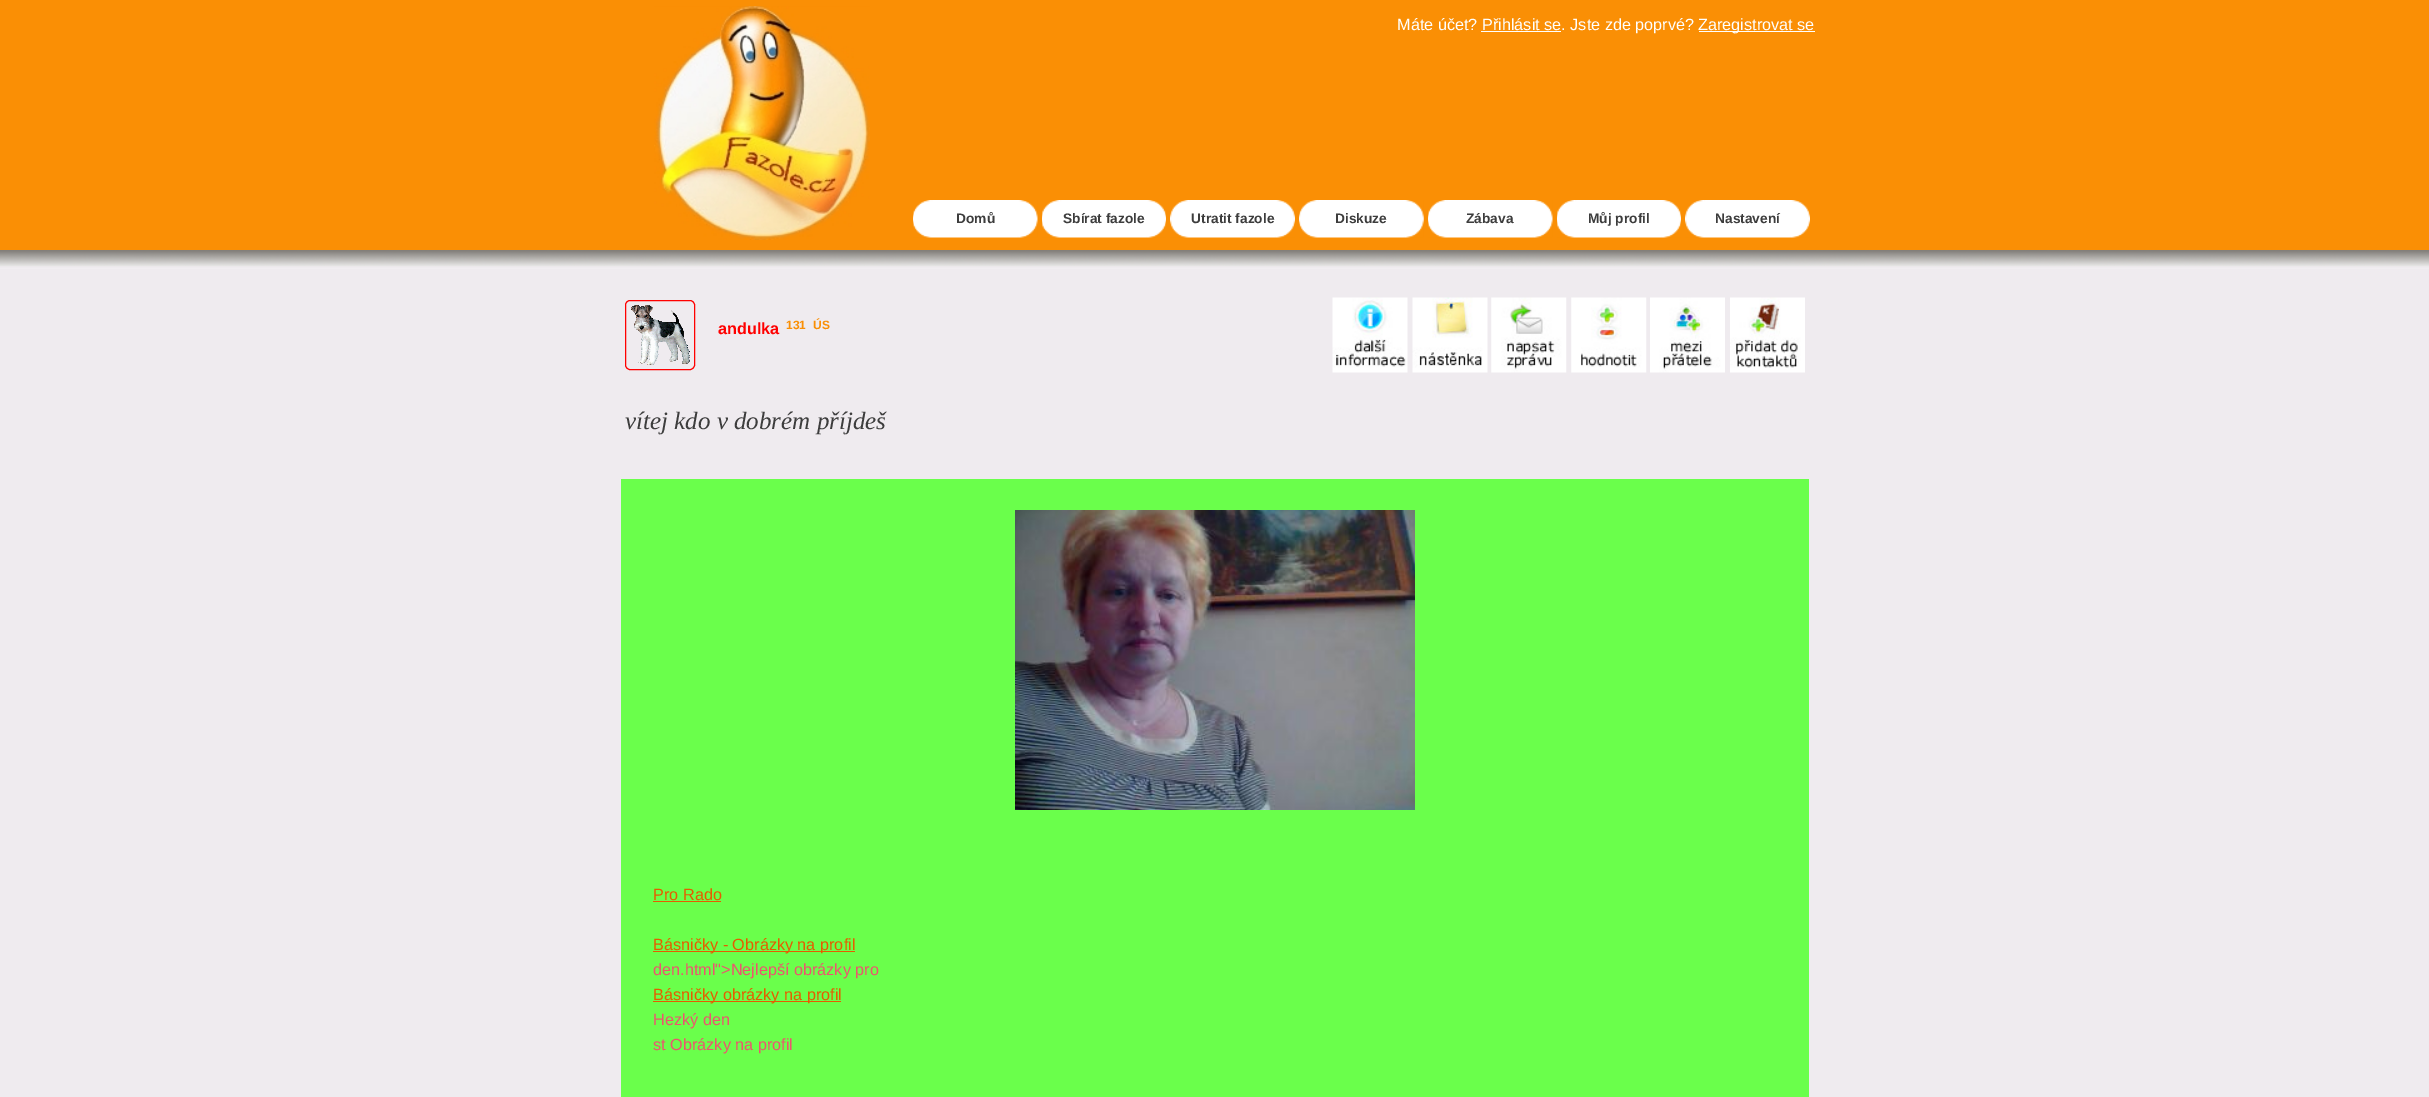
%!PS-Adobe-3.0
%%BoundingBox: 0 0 2429 1097
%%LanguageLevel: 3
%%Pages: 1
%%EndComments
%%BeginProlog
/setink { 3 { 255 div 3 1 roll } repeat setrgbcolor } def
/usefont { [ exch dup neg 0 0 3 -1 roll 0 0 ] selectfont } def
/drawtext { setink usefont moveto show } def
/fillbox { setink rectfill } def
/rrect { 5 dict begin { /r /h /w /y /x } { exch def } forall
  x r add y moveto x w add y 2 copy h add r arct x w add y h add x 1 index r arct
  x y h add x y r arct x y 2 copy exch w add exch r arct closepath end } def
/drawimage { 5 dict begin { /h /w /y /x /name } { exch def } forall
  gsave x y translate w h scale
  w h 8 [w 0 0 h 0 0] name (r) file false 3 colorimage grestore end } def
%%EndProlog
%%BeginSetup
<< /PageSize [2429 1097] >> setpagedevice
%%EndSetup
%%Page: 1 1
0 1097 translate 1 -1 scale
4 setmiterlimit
0 0 2429 1097 255 255 255 fillbox
0 0 2429 250 250 143 5 fillbox
(assets/img1.rgb) 654 6 216 234 drawimage
(Máte účet? Přihlásit se. Jste zde poprvé?) 1397 30 /LiberationSans-Regular 16.25 255 255 255 drawtext
1699 31 116 1 255 255 255 fillbox
(Zaregistrovat se) 1698 30 /LiberationSans-Regular 16.25 255 255 255 drawtext
1481 31 80 1 255 255 255 fillbox
(assets/img2.rgb) 913 200 125 38 drawimage
(Domů) 956 223 /LiberationSans-Bold 13.75 61 61 61 drawtext
(assets/img3.rgb) 1042 200 124 38 drawimage
(Sbírat fazole) 1063 223 /LiberationSans-Bold 13.75 61 61 61 drawtext
(assets/img4.rgb) 1170 200 125 38 drawimage
(Utratit fazole) 1191 223 /LiberationSans-Bold 13.75 61 61 61 drawtext
(assets/img5.rgb) 1299 200 125 38 drawimage
(Diskuze) 1335 223 /LiberationSans-Bold 13.75 61 61 61 drawtext
(assets/img2.rgb) 1428 200 125 38 drawimage
(Zábava) 1466 223 /LiberationSans-Bold 13.75 61 61 61 drawtext
(assets/img3.rgb) 1557 200 124 38 drawimage
(Můj profil) 1588 223 /LiberationSans-Bold 13.75 61 61 61 drawtext
(assets/img4.rgb) 1685 200 125 38 drawimage
(Nastavení) 1715 223 /LiberationSans-Bold 13.75 61 61 61 drawtext
(assets/img6.rgb) 0 250 2429 19 drawimage
0 269 2429 828 239 235 239 fillbox
255 0 0 setink
625.5 300.5 69 69 4.5 rrect stroke
(assets/img7.rgb) 631 305 59 60 drawimage
(andulka) 718 334 /LiberationSans-Bold 16.25 255 0 0 drawtext
(131) 786 329 /LiberationSans-Bold 12 250 143 5 drawtext
(ÚS) 813 329 /LiberationSans-Bold 12 250 143 5 drawtext
(assets/img8.rgb) 1332 297 76 76 drawimage
(assets/img9.rgb) 1412 297 76 76 drawimage
(assets/img10.rgb) 1491 297 76 76 drawimage
(assets/img11.rgb) 1571 297 76 76 drawimage
(assets/img12.rgb) 1650 297 75 76 drawimage
(assets/img13.rgb) 1730 297 75 76 drawimage
(vítej kdo v dobrém příjdeš) 625 429 /LiberationSerif-Italic 25 61 61 61 drawtext
621 479 1188 618 106 255 75 fillbox
(assets/img14.rgb) 1015 510 400 300 drawimage
(Pro Rado) 653 900 /LiberationSans-Regular 16.25 230 92 0 drawtext
653 901 68 1 230 92 0 fillbox
653 951 202 1 230 92 0 fillbox
(Básničky - Obrázky na profil) 653 950 /LiberationSans-Regular 16.25 230 92 0 drawtext
(den.html">Nejlepší obrázky pro) 653 975 /LiberationSans-Regular 16.25 237 85 111 drawtext
653 1001 188 1 230 92 0 fillbox
(Básničky obrázky na profil) 653 1000 /LiberationSans-Regular 16.25 230 92 0 drawtext
(Hezký den) 653 1025 /LiberationSans-Regular 16.25 237 85 111 drawtext
(st Obrázky na profil) 653 1050 /LiberationSans-Regular 16.25 237 85 111 drawtext
showpage
%%EOF
